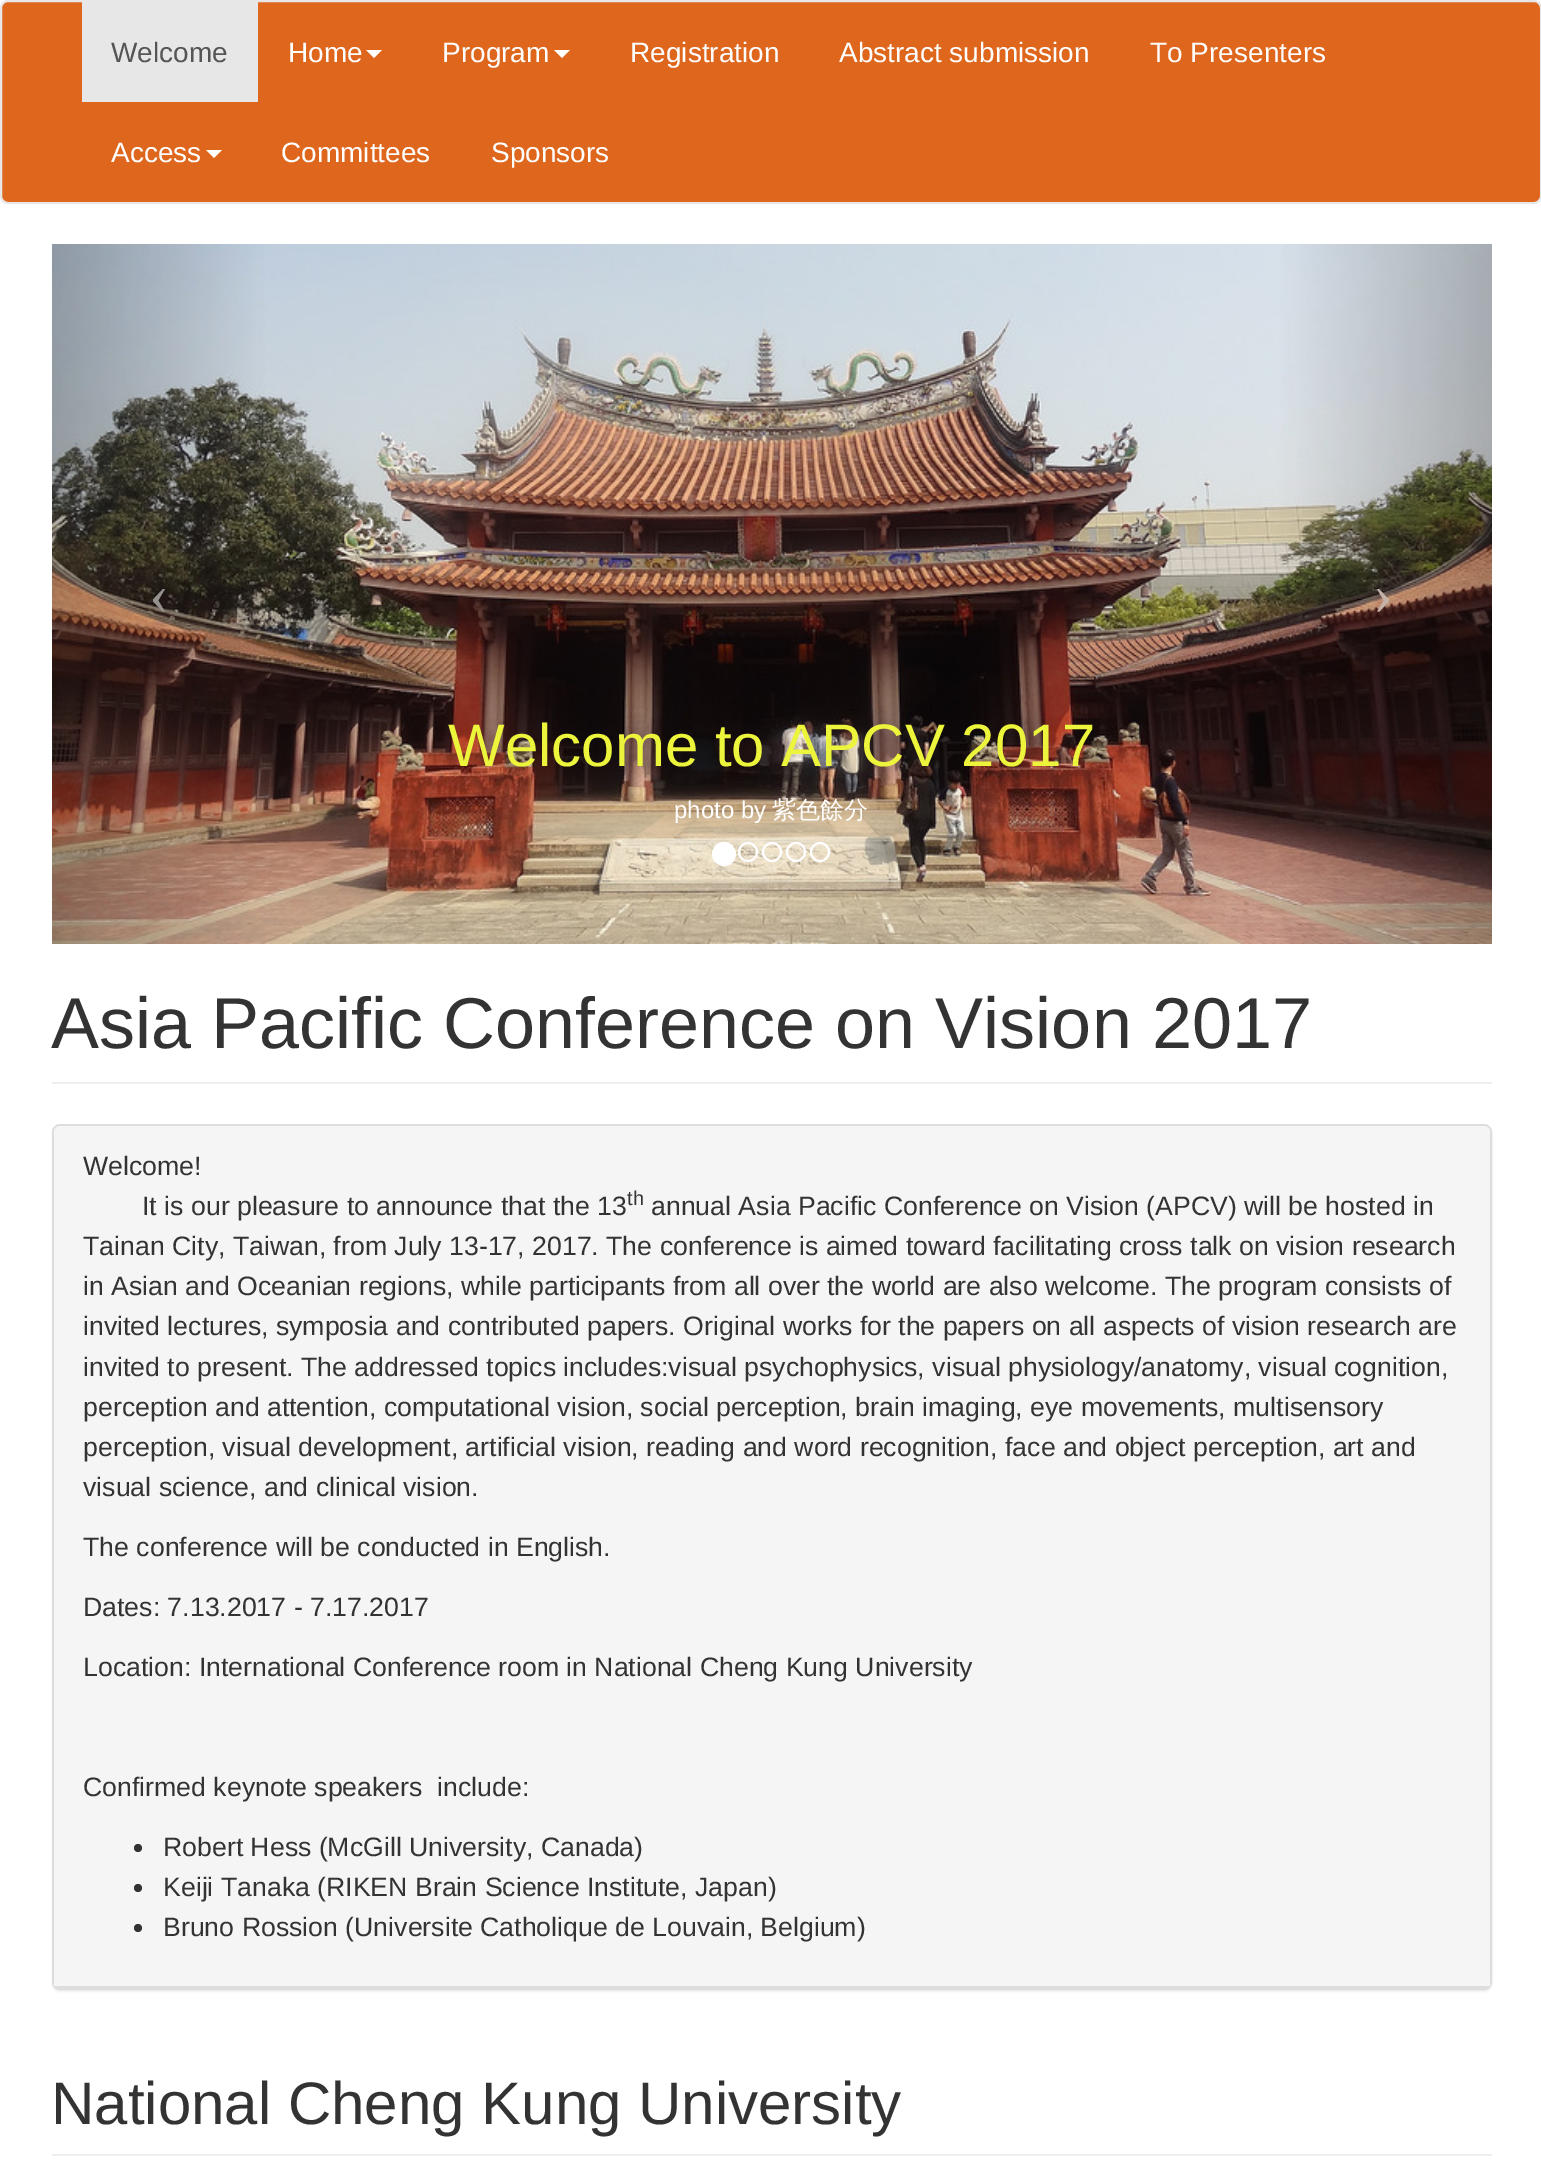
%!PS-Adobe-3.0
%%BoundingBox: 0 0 1541 2180
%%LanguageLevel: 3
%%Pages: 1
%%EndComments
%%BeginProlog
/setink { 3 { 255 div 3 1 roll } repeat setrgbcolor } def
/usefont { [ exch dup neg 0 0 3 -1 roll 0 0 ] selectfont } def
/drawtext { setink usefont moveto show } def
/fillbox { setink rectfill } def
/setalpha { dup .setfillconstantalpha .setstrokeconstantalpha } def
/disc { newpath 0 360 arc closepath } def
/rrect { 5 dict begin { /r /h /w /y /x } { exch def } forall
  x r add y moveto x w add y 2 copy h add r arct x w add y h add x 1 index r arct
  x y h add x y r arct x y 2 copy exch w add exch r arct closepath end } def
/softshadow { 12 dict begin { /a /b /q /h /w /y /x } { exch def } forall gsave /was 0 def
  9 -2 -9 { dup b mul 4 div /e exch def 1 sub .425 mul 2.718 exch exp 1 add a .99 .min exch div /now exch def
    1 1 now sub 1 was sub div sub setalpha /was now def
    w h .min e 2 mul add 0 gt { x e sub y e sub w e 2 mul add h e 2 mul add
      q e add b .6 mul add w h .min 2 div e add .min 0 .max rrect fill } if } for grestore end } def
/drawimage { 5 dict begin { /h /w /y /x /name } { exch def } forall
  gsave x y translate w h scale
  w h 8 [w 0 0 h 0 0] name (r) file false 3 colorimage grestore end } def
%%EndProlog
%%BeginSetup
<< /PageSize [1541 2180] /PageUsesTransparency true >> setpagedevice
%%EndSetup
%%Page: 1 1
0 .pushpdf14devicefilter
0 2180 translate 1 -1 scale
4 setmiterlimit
0 0 1541 2180 255 255 255 fillbox
222 103 29 setink
1 1 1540 202 7 rrect gsave fill grestore
231 231 231 setink
2 setlinewidth
stroke
82 2 176 100 231 231 231 fillbox
(Welcome) 111 62 /LiberationSans-Regular 28 85 85 85 drawtext
(Home) 288 62 /LiberationSans-Regular 28 255 255 255 drawtext
366 50 moveto 382 50 lineto 374 58 lineto closepath fill
(Program) 442 62 /LiberationSans-Regular 28 255 255 255 drawtext
554 50 moveto 570 50 lineto 562 58 lineto closepath fill
(Registration) 630 62 /LiberationSans-Regular 28 255 255 255 drawtext
(Abstract submission) 839 62 /LiberationSans-Regular 28 255 255 255 drawtext
(To Presenters) 1150 62 /LiberationSans-Regular 28 255 255 255 drawtext
(Access) 111 162 /LiberationSans-Regular 28 255 255 255 drawtext
206 150 moveto 222 150 lineto 214 158 lineto closepath fill
(Committees) 281 162 /LiberationSans-Regular 28 255 255 255 drawtext
(Sponsors) 491 162 /LiberationSans-Regular 28 255 255 255 drawtext
(assets/img1.rgb) 52 244 1440 700 drawimage
(‹) 149 614 /LiberationSerif-Regular 60 149 145 143 drawtext
(›) 1373 614 /LiberationSerif-Regular 60 196 178 169 drawtext
(Welcome to APCV 2017) 448 766 /LiberationSans-Regular 60 236 245 59 drawtext
(photo by) 674 818 /LiberationSans-Regular 24 255 255 255 drawtext
(紫色餘分) 772 818 /WenQuanYiZenHei-Medium 24 255 255 255 drawtext
724 854 11 disc gsave fill grestore
stroke
748 852 9 disc stroke
772 852 9 disc stroke
796 852 9 disc stroke
820 852 9 disc stroke
52 1082 1440 2 238 238 238 fillbox
(Asia Pacific Conference on Vision 2017) 51 1048 /LiberationSans-Regular 72 51 51 51 drawtext
0 0 0 setink
52 1126 1440 866 8 1 0.05 softshadow
221 221 221 setink
53 1125 1438 864 7 rrect stroke
245 245 245 setink
60 1126 moveto 1484 1126 lineto 1487.5 1126 1490 1128.5 1490 1132 curveto 1490 1988 lineto 54 1988 lineto 54 1132 lineto 54 1128.5 56.5 1126 60 1126 curveto closepath fill
54 1986 1436 2 221 221 221 fillbox
(Welcome!) 83 1175 /LiberationSans-Regular 26.67 51 51 51 drawtext
(It is our pleasure to announce that the 13) 142 1215 /LiberationSans-Regular 26.67 51 51 51 drawtext
(th) 627 1205 /LiberationSans-Regular 20 51 51 51 drawtext
(annual Asia Pacific Conference on Vision \(APCV\) will be hosted in) 651 1215 /LiberationSans-Regular 26.67 51 51 51 drawtext
(Tainan City, Taiwan, from July 13-17, 2017. The conference is aimed toward facilitating cross talk on vision research) 83 1255 /LiberationSans-Regular 26.67 51 51 51 drawtext
(in Asian and Oceanian regions, while participants from all over the world are also welcome. The program consists of) 83 1295 /LiberationSans-Regular 26.67 51 51 51 drawtext
(invited lectures, symposia and contributed papers. Original works for the papers on all aspects of vision research are) 83 1335 /LiberationSans-Regular 26.67 51 51 51 drawtext
(invited to present. The addressed topics includes:visual psychophysics, visual physiology/anatomy, visual cognition,) 83 1376 /LiberationSans-Regular 26.67 51 51 51 drawtext
(perception and attention, computational vision, social perception, brain imaging, eye movements, multisensory) 83 1416 /LiberationSans-Regular 26.67 51 51 51 drawtext
(perception, visual development, artificial vision, reading and word recognition, face and object perception, art and) 83 1456 /LiberationSans-Regular 26.67 51 51 51 drawtext
(visual science, and clinical vision.) 83 1496 /LiberationSans-Regular 26.67 51 51 51 drawtext
(The conference will be conducted in English.) 83 1556 /LiberationSans-Regular 26.67 51 51 51 drawtext
(Dates: 7.13.2017 - 7.17.2017) 83 1616 /LiberationSans-Regular 26.67 51 51 51 drawtext
(Location: International Conference room in National Cheng Kung University) 83 1676 /LiberationSans-Regular 26.67 51 51 51 drawtext
(Confirmed keynote speakers  include:) 83 1796 /LiberationSans-Regular 26.67 51 51 51 drawtext
138 1848 4 disc fill
(Robert Hess \(McGill University, Canada\)) 163 1856 /LiberationSans-Regular 26.67 51 51 51 drawtext
138 1888 4 disc fill
(Keiji Tanaka \(RIKEN Brain Science Institute, Japan\)) 163 1896 /LiberationSans-Regular 26.67 51 51 51 drawtext
138 1928 4 disc fill
(Bruno Rossion \(Universite Catholique de Louvain, Belgium\)) 163 1936 /LiberationSans-Regular 26.67 51 51 51 drawtext
52 2154 1440 2 238 238 238 fillbox
(National Cheng Kung University) 51 2124 /LiberationSans-Regular 60 51 51 51 drawtext
.poppdf14devicefilter showpage
%%EOF
